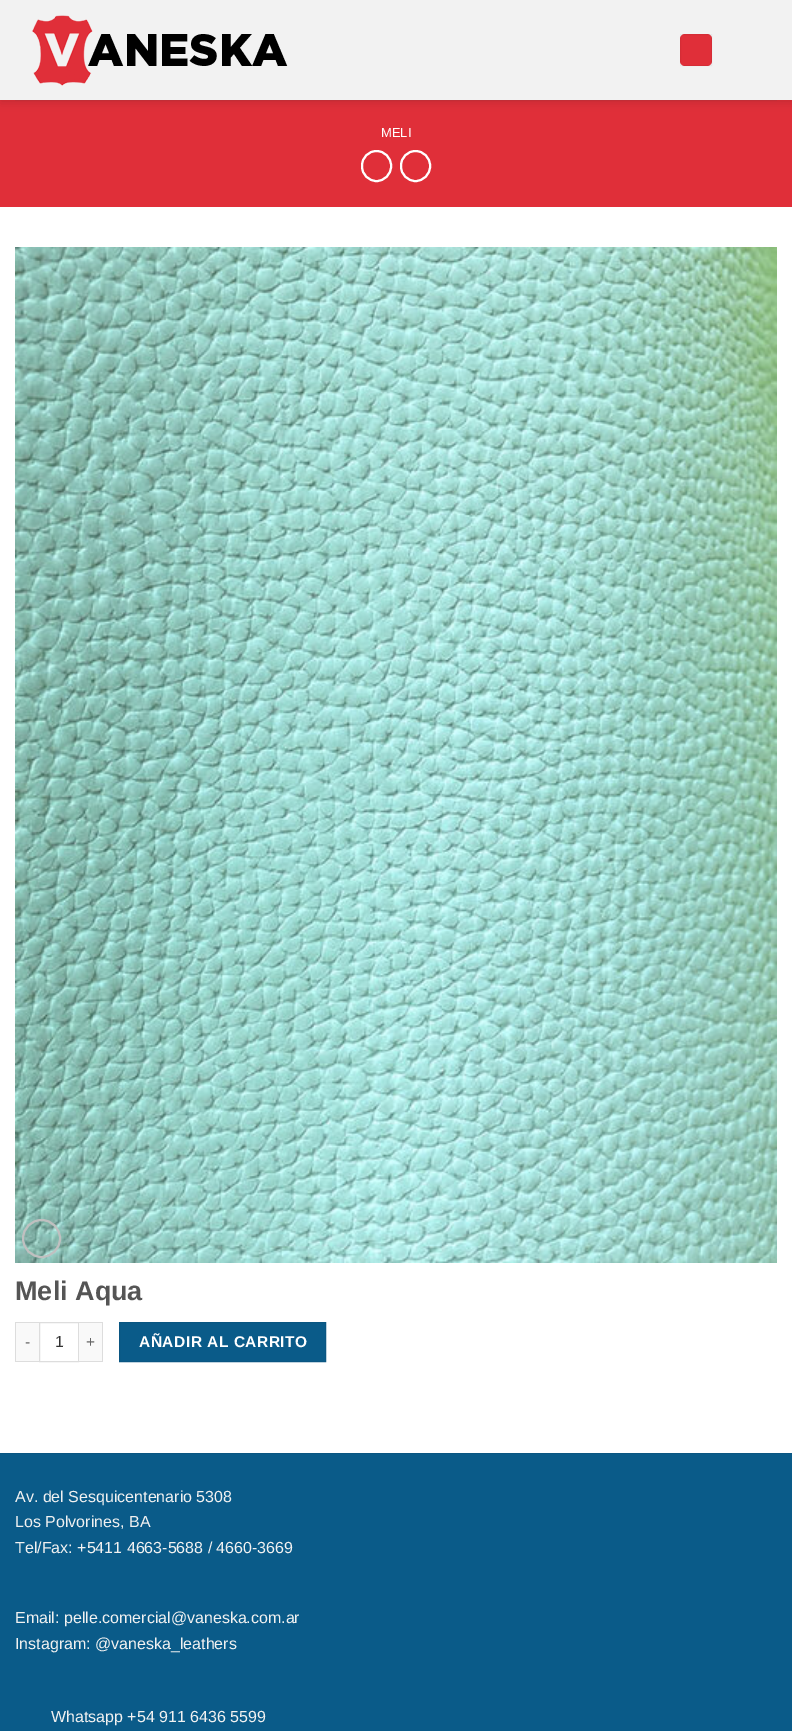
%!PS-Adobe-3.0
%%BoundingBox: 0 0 792 1731
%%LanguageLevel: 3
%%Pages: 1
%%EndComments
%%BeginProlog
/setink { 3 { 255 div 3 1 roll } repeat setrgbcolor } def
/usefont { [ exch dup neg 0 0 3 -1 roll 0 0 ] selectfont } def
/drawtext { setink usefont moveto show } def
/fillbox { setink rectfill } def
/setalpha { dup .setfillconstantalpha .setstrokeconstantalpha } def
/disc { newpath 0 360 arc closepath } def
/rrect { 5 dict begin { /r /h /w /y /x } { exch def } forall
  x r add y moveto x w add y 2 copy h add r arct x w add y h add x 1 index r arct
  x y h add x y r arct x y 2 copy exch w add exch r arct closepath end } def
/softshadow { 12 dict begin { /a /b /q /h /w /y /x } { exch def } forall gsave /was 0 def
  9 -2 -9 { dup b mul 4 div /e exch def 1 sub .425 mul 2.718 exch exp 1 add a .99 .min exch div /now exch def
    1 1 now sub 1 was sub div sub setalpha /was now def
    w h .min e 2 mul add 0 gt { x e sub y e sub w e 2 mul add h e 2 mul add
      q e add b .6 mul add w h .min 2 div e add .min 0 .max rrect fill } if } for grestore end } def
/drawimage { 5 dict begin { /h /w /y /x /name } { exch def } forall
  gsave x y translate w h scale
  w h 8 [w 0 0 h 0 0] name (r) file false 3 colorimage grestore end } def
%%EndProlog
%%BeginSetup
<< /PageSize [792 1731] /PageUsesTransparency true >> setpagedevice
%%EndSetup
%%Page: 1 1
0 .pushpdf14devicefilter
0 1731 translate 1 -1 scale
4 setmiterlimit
0 0 792 1731 255 255 255 fillbox
0 100 792 107 224 47 57 fillbox
0 0 0 setink
1 1 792 100 0 5 0.15 softshadow
0 0 792 100 242 242 242 fillbox
(assets/img1.rgb) 32 15 256 71 drawimage
224 47 57 setink
680 34 32 32 5 rrect fill
0.05 setalpha
0 0 0 setink
680.5 34.5 31 31 rectstroke
1 setalpha
15 100 762 1 193 46 55 fillbox
(MELI) 381 137 /LiberationSans-Regular 13 255 255 255 drawtext
2 setlinewidth
362 151 29 30 14.5 rrect stroke
401 151 29 30 14.5 rrect stroke
(assets/img2.rgb) 15 247 762 1016 drawimage
192 192 192 setink
41.5 1238.5 18.5 disc stroke
(Meli Aqua) 15 1300 /LiberationSans-Bold 27 85 85 85 drawtext
16 1323 23 38 249 249 249 fillbox
15 1322 24 1 221 221 221 fillbox
15 1361 24 1 221 221 221 fillbox
15 1322 1 40 221 221 221 fillbox
/LiberationSans-Regular 15.5 usefont
102 102 102 setink
25 1347 moveto 0.5 0 (-) ashow
221 221 221 setink
1 setlinewidth
39.5 1322.5 39 39 rectstroke
(1) 55 1347 /LiberationSans-Regular 16 51 51 51 drawtext
79 1323 23 38 249 249 249 fillbox
79 1322 24 1 221 221 221 fillbox
102 1322 1 40 221 221 221 fillbox
79 1361 24 1 221 221 221 fillbox
/LiberationSans-Regular 15.5 usefont
102 102 102 setink
86 1347 moveto 0.5 0 (+) ashow
10 91 137 setink
119.5 1322.5 moveto 325.5 1322.5 lineto 325.5 1361.5 lineto 119.5 1361.5 lineto closepath gsave fill grestore
10 86 130 setink
stroke
/LiberationSans-Bold 15.5 usefont
255 255 255 setink
139 1347 moveto 0.5 0 (AÑADIR AL CARRITO) ashow
0 1454 792 277 10 91 137 fillbox
0 1453 792 1 10 86 130 fillbox
(Av. del Sesquicentenario 5308) 15 1502 /LiberationSans-Regular 16 241 241 241 drawtext
(Los Polvorines, BA) 15 1527 /LiberationSans-Regular 16 241 241 241 drawtext
(Tel/Fax: +5411 4663-5688 / 4660-3669) 15 1553 /LiberationSans-Regular 16 241 241 241 drawtext
(Email: pelle.comercial@vaneska.com.ar) 15 1623 /LiberationSans-Regular 16 241 241 241 drawtext
(Instagram: @vaneska_leathers) 15 1649 /LiberationSans-Regular 16 241 241 241 drawtext
(Whatsapp +54 911 6436 5599) 51 1722 /LiberationSans-Regular 16 241 241 241 drawtext
.poppdf14devicefilter showpage
%%EOF
